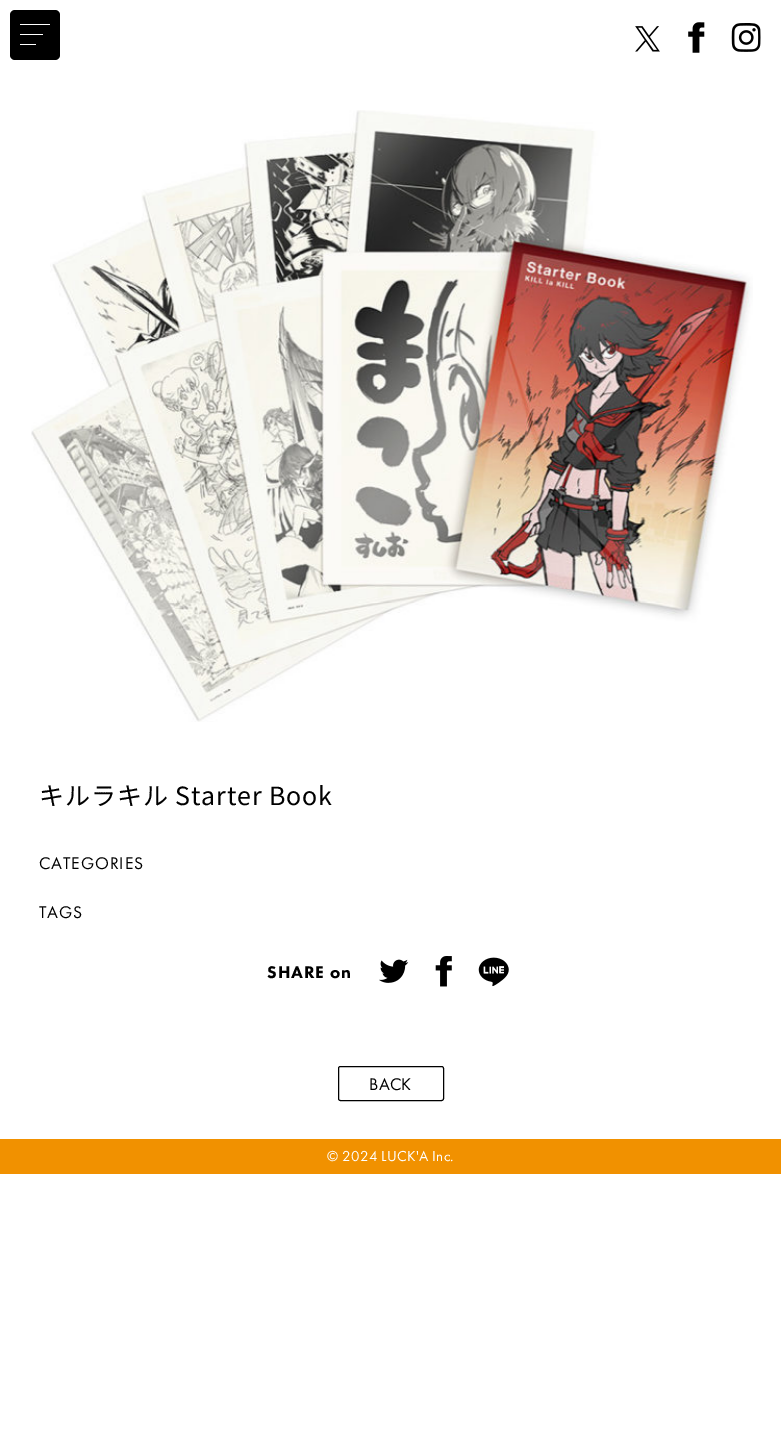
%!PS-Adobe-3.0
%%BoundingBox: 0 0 781 1436
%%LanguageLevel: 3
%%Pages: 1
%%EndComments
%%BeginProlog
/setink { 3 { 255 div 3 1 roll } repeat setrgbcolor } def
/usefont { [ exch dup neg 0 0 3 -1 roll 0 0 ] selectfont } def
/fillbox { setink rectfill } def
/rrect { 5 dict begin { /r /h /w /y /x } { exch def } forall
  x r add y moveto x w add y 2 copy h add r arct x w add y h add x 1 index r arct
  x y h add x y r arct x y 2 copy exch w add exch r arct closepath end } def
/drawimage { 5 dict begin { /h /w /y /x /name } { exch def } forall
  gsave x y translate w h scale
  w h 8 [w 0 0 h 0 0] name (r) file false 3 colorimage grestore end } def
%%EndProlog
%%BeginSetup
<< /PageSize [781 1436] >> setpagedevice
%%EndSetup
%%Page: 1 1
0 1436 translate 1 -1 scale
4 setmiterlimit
0 0 781 1436 255 255 255 fillbox
(assets/img1.rgb) 635 26 25 26 drawimage
(assets/img2.rgb) 688 22 17 31 drawimage
(assets/img3.rgb) 731 23 30 29 drawimage
0 0 0 setink
10 10 50 50 5 rrect fill
20 24 30 1 255 255 255 fillbox
20 34 23 1 255 255 255 fillbox
20 44 16 1 255 255 255 fillbox
(assets/img4.rgb) 31 110 722 612 drawimage
/NotoSansJP-Regular 25 usefont
0 0 0 setink
39 805 moveto 0.9 0 (キルラキル Starter Book) ashow
/FuturaPT-Regular 17.5 usefont
39 869 moveto 0.9 0 (CATEGORIES) ashow
39 918 moveto 0.9 0 (TAGS) ashow
/FuturaPT-Black 17.5 usefont
267 978 moveto 0.9 0 (SHARE on) ashow
(assets/img5.rgb) 379 959 30 24 drawimage
(assets/img6.rgb) 435 956 17 31 drawimage
(assets/img7.rgb) 478 957 31 30 drawimage
338.5 1066.5 105 34 2 rrect stroke
/FuturaPT-Regular 17.5 usefont
369 1090 moveto 0.3 0 (BACK) ashow
0 1139 781 35 241 145 0 fillbox
/FuturaPT-Regular 15 usefont
255 255 255 setink
327 1161 moveto 0.3 0 (© 2024 LUCK'A Inc.) ashow
showpage
%%EOF
